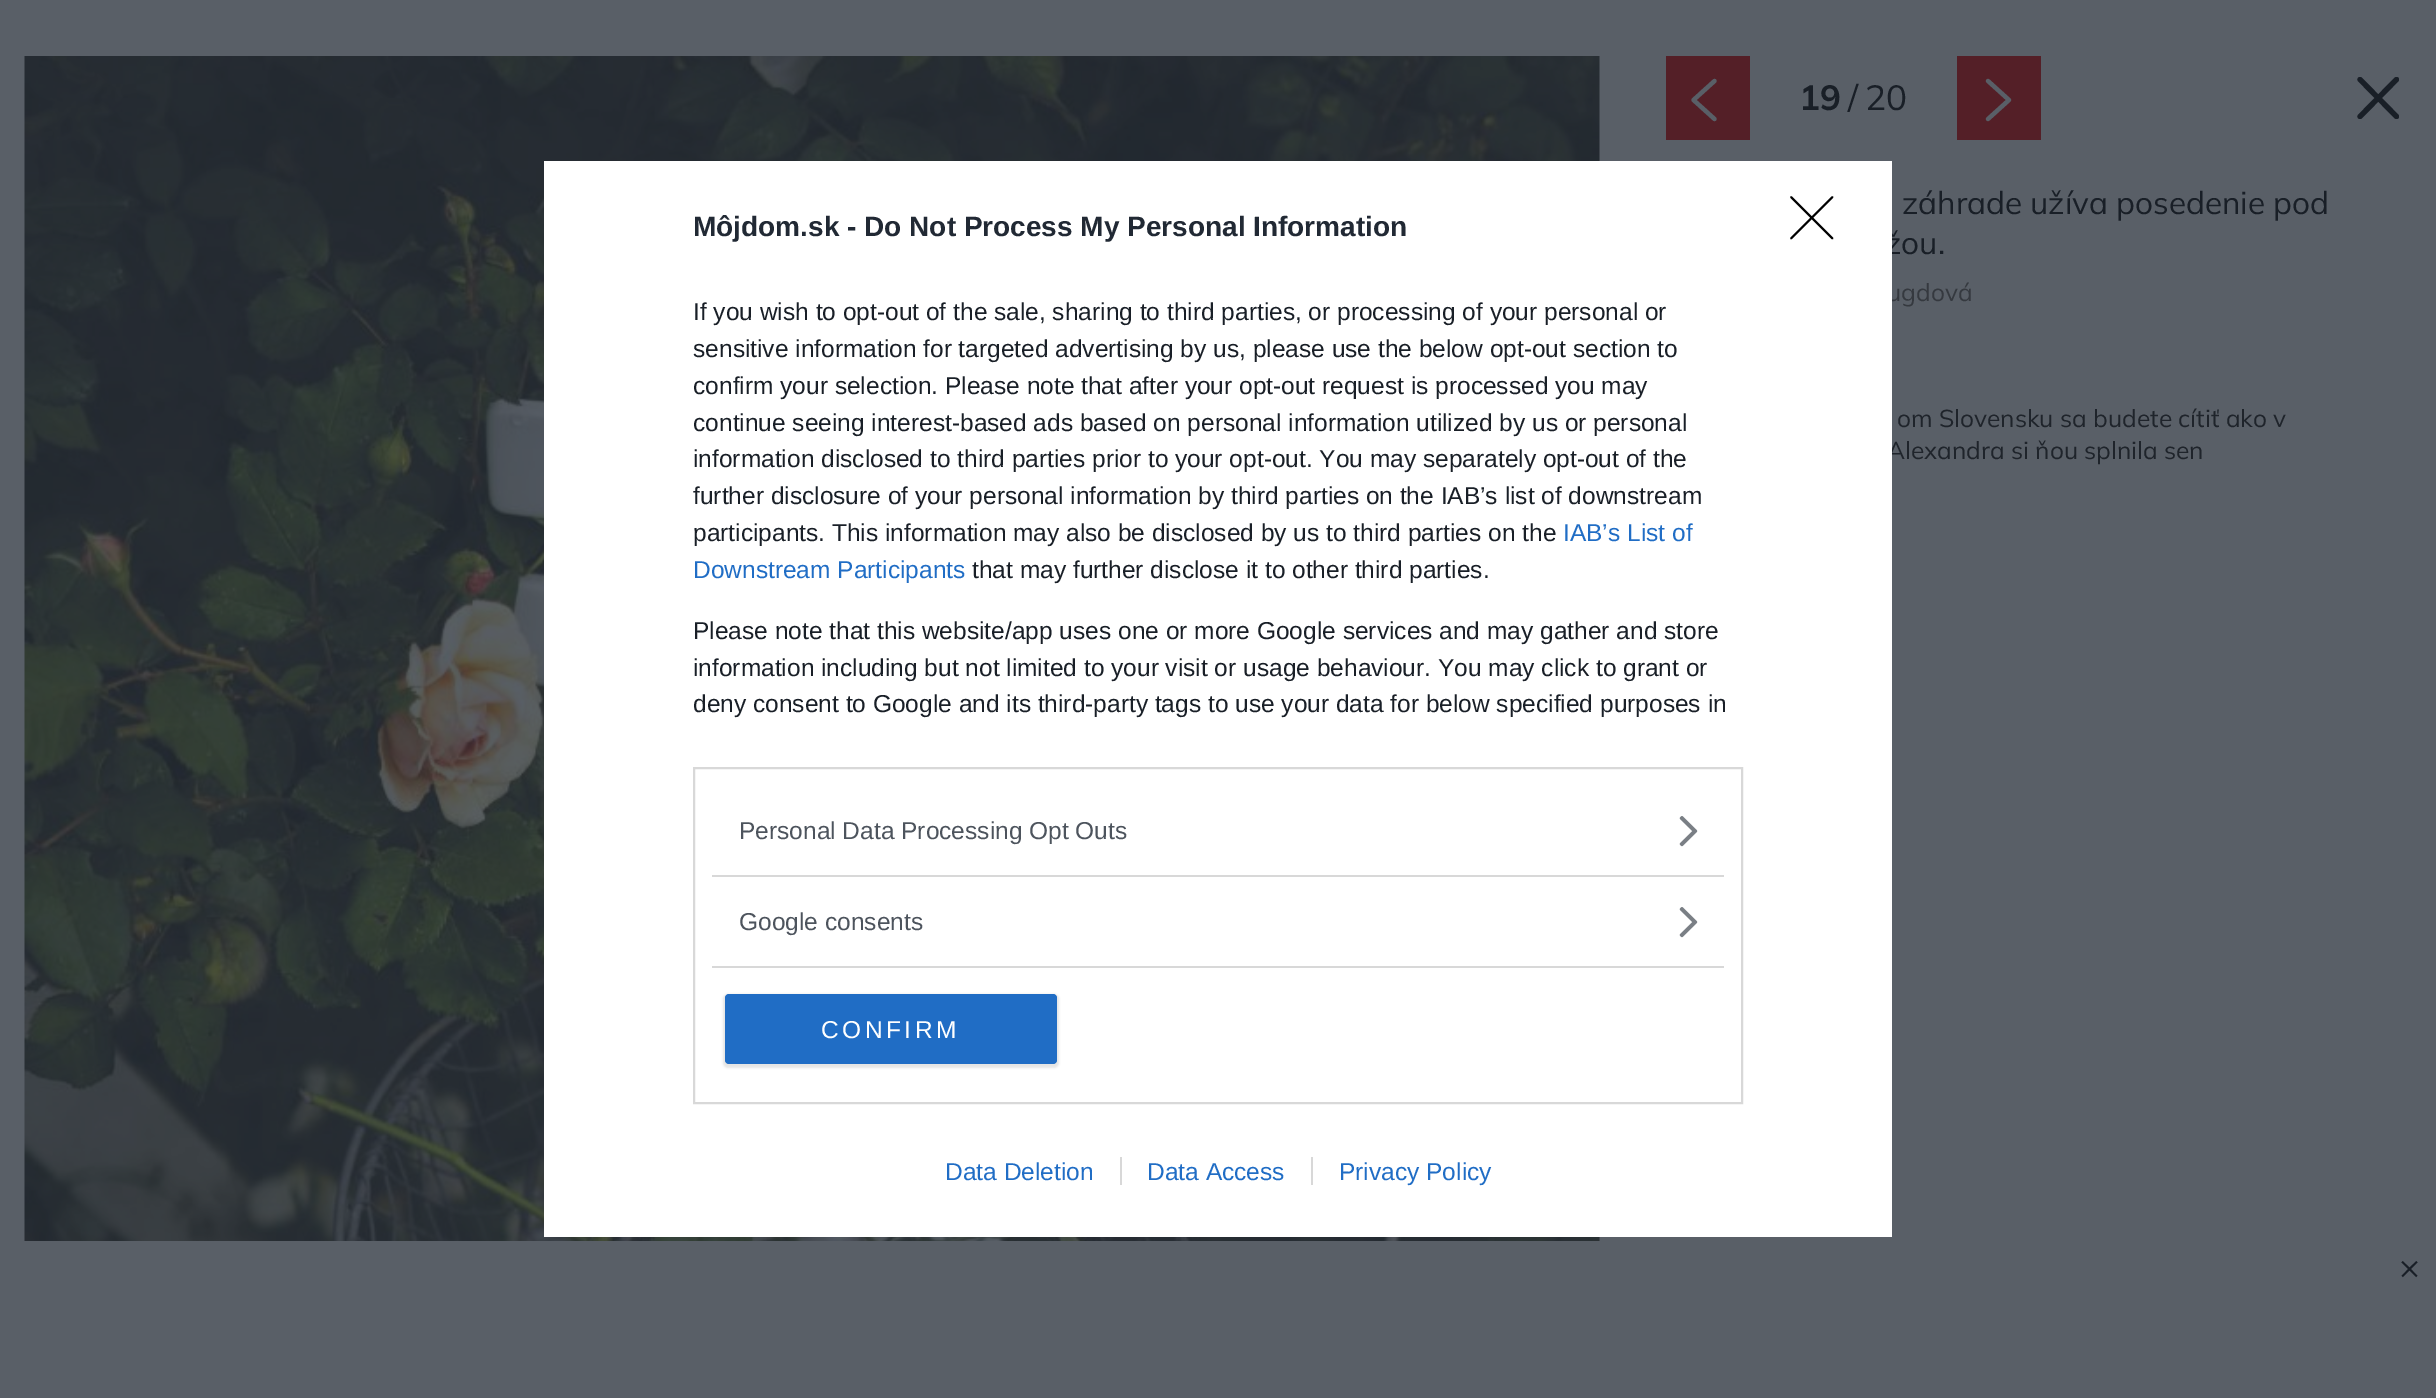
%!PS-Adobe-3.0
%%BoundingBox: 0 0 2436 1398
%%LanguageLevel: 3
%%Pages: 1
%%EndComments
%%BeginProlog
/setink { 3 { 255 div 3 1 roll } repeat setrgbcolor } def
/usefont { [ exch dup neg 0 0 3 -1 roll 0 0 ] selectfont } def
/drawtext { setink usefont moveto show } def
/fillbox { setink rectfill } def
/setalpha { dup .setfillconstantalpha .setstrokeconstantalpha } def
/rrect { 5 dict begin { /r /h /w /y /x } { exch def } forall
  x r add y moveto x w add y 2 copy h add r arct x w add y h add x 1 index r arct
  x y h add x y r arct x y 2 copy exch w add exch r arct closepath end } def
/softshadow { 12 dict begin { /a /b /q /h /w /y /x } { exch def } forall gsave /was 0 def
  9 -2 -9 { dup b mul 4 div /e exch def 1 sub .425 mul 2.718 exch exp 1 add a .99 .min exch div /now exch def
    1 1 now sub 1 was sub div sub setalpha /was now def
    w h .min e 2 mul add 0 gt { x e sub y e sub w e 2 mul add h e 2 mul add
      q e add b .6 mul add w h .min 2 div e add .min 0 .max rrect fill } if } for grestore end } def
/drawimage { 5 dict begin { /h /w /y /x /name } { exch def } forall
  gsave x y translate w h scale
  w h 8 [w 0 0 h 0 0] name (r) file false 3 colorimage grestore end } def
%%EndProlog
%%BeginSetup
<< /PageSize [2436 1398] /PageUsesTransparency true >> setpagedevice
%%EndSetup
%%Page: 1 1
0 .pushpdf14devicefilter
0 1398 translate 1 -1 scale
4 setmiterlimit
0 0 2436 1398 89 95 103 fillbox
(assets/img2.rgb) 24 56 1576 1185 drawimage
(žou.) 1885 254 /Mulish-ExtraLight 31.5 25 31 39 drawtext
(ugdová) 1887 301 /Mulish-ExtraLight 24.5 53 57 63 drawtext
(Alexandra si ňou splnila sen) 1887 459 /Mulish-ExtraLight 24.5 31 36 43 drawtext
544 161 1348 1076 255 255 255 fillbox
(Môjdom.sk - Do Not Process My Personal Information) 693 236 /LiberationSans-Bold 28 33 41 52 drawtext
(If you wish to opt-out of the sale, sharing to third parties, or processing of your personal or) 693 320 /LiberationSans-Regular 24.5 25 31 39 drawtext
(sensitive information for targeted advertising by us, please use the below opt-out section to) 693 357 /LiberationSans-Regular 24.5 25 31 39 drawtext
(confirm your selection. Please note that after your opt-out request is processed you may) 693 394 /LiberationSans-Regular 24.5 25 31 39 drawtext
(continue seeing interest-based ads based on personal information utilized by us or personal) 693 431 /LiberationSans-Regular 24.5 25 31 39 drawtext
(information disclosed to third parties prior to your opt-out. You may separately opt-out of the) 693 467 /LiberationSans-Regular 24.5 25 31 39 drawtext
(further disclosure of your personal information by third parties on the IAB’s list of downstream) 693 504 /LiberationSans-Regular 24.5 25 31 39 drawtext
(participants. This information may also be disclosed by us to third parties on the) 693 541 /LiberationSans-Regular 24.5 25 31 39 drawtext
(IAB’s List of) 1563 541 /LiberationSans-Regular 24.5 32 109 197 drawtext
(Downstream Participants) 693 578 /LiberationSans-Regular 24.5 32 109 197 drawtext
(that may further disclose it to other third parties.) 972 578 /LiberationSans-Regular 24.5 25 31 39 drawtext
(Please note that this website/app uses one or more Google services and may gather and store) 693 639 /LiberationSans-Regular 24.5 25 31 39 drawtext
(information including but not limited to your visit or usage behaviour. You may click to grant or) 693 676 /LiberationSans-Regular 24.5 25 31 39 drawtext
(deny consent to Google and its third-party tags to use your data for below specified purposes in) 693 712 /LiberationSans-Regular 24.5 25 31 39 drawtext
216 216 216 setink
2 setlinewidth
694 768 1048 335 rectstroke
712 875 1012 2 216 216 216 fillbox
(Personal Data Processing Opt Outs) 739 839 /LiberationSans-Regular 24.5 77 84 93 drawtext
(assets/img1.rgb) 1679 816 19 31 drawimage
712 966 1012 2 216 216 216 fillbox
(Google consents) 739 930 /LiberationSans-Regular 24.5 77 84 93 drawtext
(assets/img1.rgb) 1679 907 19 31 drawimage
0 0 0 setink
723 994 336 74 5 1 0.1 softshadow
32 109 197 setink
725 994 332 70 4 rrect fill
255 255 255 setink
821 1038 moveto 3.5 0 (CONFIRM) ashow
0 0 0 setink
1.8 setlinewidth
1 setlinecap
1 setlinejoin
1791 197 moveto 1832.5 238.5 lineto 1832.5 197 moveto 1791 238.5 lineto stroke
(Data Deletion) 945 1180 /LiberationSans-Regular 24.5 32 109 197 drawtext
(Data Access) 1147 1180 /LiberationSans-Regular 24.5 32 109 197 drawtext
1120 1157 2 28 216 216 216 fillbox
(Privacy Policy) 1339 1180 /LiberationSans-Regular 24.5 32 109 197 drawtext
1311 1157 2 28 216 216 216 fillbox
1666 56 84 84 84 31 39 fillbox
89 95 103 setink
4.2 setlinewidth
1714.5 81 moveto 1693.5 100 lineto 1714.5 119 lineto stroke
(19) 1799 110 /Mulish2-ExtraLight 35 25 31 39 drawtext
(/) 1848 110 /Mulish-ExtraLight 35 25 31 39 drawtext
(20) 1865 110 /Mulish-ExtraLight 35 25 31 39 drawtext
1957 56 84 84 84 31 39 fillbox
89 95 103 setink
1988 81 moveto 2009 100 lineto 1988 119 lineto stroke
gsave
2357 77 42 42 rectclip
25 31 39 setink
5.2 setlinewidth
2396.5 79.5 moveto 2360 116.5 lineto 2396.5 116.5 moveto 2360 79.5 lineto stroke
grestore
(záhrade užíva posedenie pod) 1902 214 /Mulish-ExtraLight 31.5 25 31 39 drawtext
(om Slovensku sa budete cítiť ako v) 1897 427 /Mulish-ExtraLight 24.5 31 36 43 drawtext
(×) 2399 1279 /Mulish-ExtraLight 35 25 31 39 drawtext
.poppdf14devicefilter showpage
%%EOF
